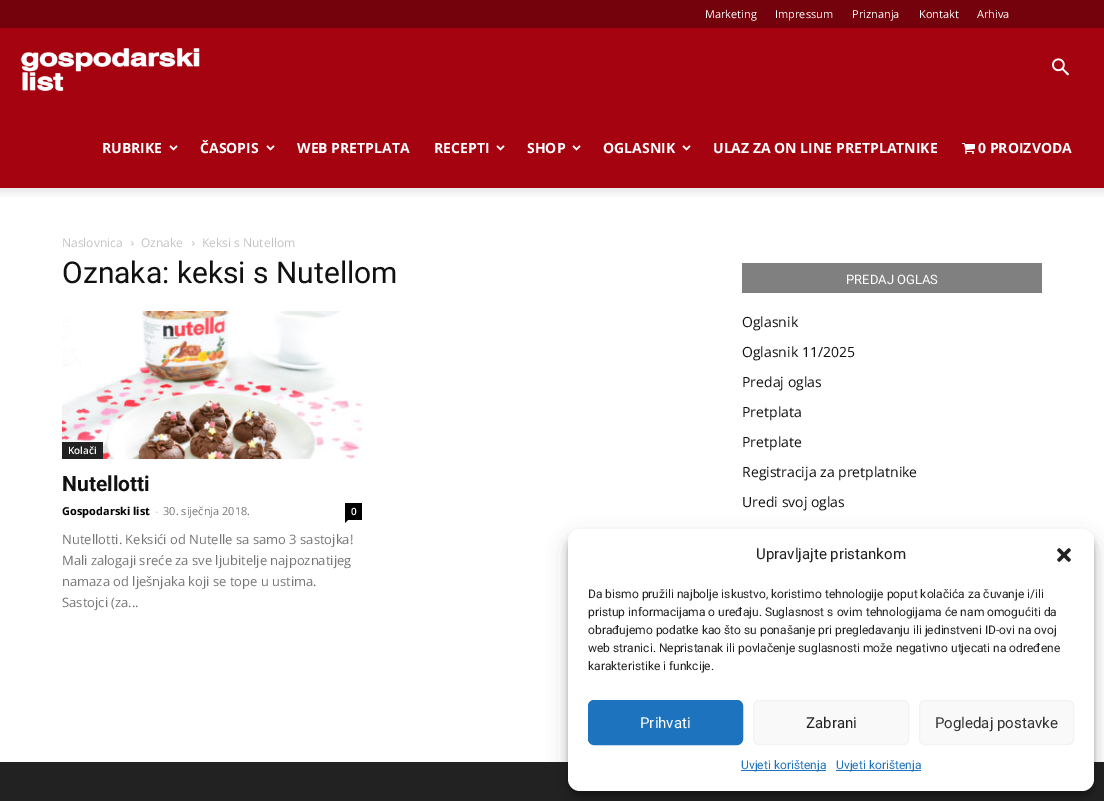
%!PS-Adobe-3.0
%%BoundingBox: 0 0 1104 801
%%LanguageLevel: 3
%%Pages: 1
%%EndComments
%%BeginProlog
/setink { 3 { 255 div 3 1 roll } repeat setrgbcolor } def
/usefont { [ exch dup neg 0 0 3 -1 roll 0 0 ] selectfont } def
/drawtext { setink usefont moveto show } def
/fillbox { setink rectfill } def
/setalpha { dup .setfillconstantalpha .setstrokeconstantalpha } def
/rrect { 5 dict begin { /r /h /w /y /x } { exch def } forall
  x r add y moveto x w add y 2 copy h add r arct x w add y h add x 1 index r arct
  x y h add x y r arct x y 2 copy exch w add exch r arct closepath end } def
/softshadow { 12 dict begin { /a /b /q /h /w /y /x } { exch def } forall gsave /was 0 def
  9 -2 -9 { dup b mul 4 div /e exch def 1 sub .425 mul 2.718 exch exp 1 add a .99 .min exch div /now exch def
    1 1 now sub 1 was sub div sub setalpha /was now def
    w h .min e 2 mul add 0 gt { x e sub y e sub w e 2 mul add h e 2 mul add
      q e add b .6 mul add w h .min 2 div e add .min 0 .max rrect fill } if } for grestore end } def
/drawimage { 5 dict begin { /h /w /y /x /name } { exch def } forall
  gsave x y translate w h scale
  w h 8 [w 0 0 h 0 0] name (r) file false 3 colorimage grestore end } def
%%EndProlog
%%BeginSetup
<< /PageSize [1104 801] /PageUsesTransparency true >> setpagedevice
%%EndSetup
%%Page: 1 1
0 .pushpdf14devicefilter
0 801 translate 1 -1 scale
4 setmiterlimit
0 0 1104 801 255 255 255 fillbox
0 0 1104 28 115 2 12 fillbox
(Marketing) 705 18 /OpenSans-Regular 11 255 255 255 drawtext
(Impressum) 775 18 /OpenSans-Regular 11 255 255 255 drawtext
(Priznanja) 852 18 /OpenSans-Regular 11 255 255 255 drawtext
(Kontakt) 919 18 /OpenSans-Regular 11 255 255 255 drawtext
(Arhiva) 977 18 /OpenSans-Regular 11 255 255 255 drawtext
0 28 1104 160 166 3 17 fillbox
(assets/img1.rgb) 1052 58 17 18 drawimage
(assets/img2.rgb) 20 48 180 43 drawimage
(RUBRIKE) 102 153 /OpenSans-Bold 14 255 255 255 drawtext
(assets/img3.rgb) 169 145 9 6 drawimage
(ČASOPIS) 200 153 /OpenSans-Bold 14 255 255 255 drawtext
(assets/img3.rgb) 266 145 9 6 drawimage
(WEB PRETPLATA) 297 153 /OpenSans-Bold 14 255 255 255 drawtext
(RECEPTI) 434 153 /OpenSans-Bold 14 255 255 255 drawtext
(assets/img3.rgb) 496 145 9 6 drawimage
(SHOP) 527 153 /OpenSans-Bold 14 255 255 255 drawtext
(assets/img3.rgb) 572 145 9 6 drawimage
(OGLASNIK) 603 153 /OpenSans-Bold 14 255 255 255 drawtext
(assets/img3.rgb) 682 145 9 6 drawimage
(ULAZ ZA ON LINE PRETPLATNIKE) 713 153 /OpenSans-Bold 14 255 255 255 drawtext
(assets/img4.rgb) 962 143 13 11 drawimage
(0 PROIZVODA) 978 153 /OpenSans-Bold 14 255 255 255 drawtext
(assets/img5.rgb) 0 188 1104 9 drawimage
(Naslovnica) 62 247 /OpenSans-Regular 12 195 195 195 drawtext
(assets/img6.rgb) 131 241 3 5 drawimage
(Oznake) 141 247 /OpenSans-Regular 12 195 195 195 drawtext
(assets/img6.rgb) 192 241 3 5 drawimage
(Keksi s Nutellom) 202 247 /OpenSans-Regular 12 195 195 195 drawtext
(Oznaka: keksi s Nutellom) 62 283 /Roboto-Regular 30 17 17 17 drawtext
(assets/img7.rgb) 62 311 300 148 drawimage
62 442 41 17 34 34 34 fillbox
(Kolači) 68 454 /OpenSans-SemiBold 10 255 255 255 drawtext
(Nutellotti) 62 491 /Roboto-Bold 21 17 17 17 drawtext
(Gospodarski list) 62 515 /OpenSans-Bold 11 0 0 0 drawtext
(-) 155 515 /OpenSans-Regular 11 204 204 204 drawtext
(30. siječnja 2018.) 163 515 /OpenSans-Regular 11 118 118 118 drawtext
345 503 17 17 0 0 0 fillbox
(0) 351 515 /OpenSans-SemiBold 10 255 255 255 drawtext
0 0 0 setink
345 520 moveto 348 520 lineto 345 523 lineto closepath fill
(Nutellotti. Keksići od Nutelle sa samo 3 sastojka!) 62 544 /OpenSans-Regular 13 118 118 118 drawtext
(Mali zalogaji sreće za sve ljubitelje najpoznatijeg) 62 565 /OpenSans-Regular 13 118 118 118 drawtext
(namaza od lješnjaka koji se tope u ustima.) 62 586 /OpenSans-Regular 13 118 118 118 drawtext
(Sastojci \(za...) 62 607 /OpenSans-Regular 13 118 118 118 drawtext
742 263 300 30 128 128 128 fillbox
(PREDAJ OGLAS) 846 284 /Roboto-Regular 13 255 255 255 drawtext
(Oglasnik) 742 327 /OpenSans-Regular 14 17 17 17 drawtext
(Oglasnik 11/2025) 742 357 /OpenSans-Regular 14 17 17 17 drawtext
(Predaj oglas) 742 387 /OpenSans-Regular 14 17 17 17 drawtext
(Pretplata) 742 417 /OpenSans-Regular 14 17 17 17 drawtext
(Pretplate) 742 447 /OpenSans-Regular 14 17 17 17 drawtext
(Registracija za pretplatnike) 742 477 /OpenSans-Regular 14 17 17 17 drawtext
(Uredi svoj oglas) 742 507 /OpenSans-Regular 14 17 17 17 drawtext
0 762 1104 39 34 34 34 fillbox
0 0 0 setink
568 535 526 262 12 3 0.23 softshadow
568 539 526 262 12 10 0.19 softshadow
255 255 255 setink
568 529 526 262 12 rrect fill
(Upravljajte pristankom) 756 559 /Roboto-Regular 15 34 34 34 drawtext
(assets/img8.rgb) 1057 548 14 14 drawimage
(Da bismo pružili najbolje iskustvo, koristimo tehnologije poput kolačića za čuvanje i/ili) 588 598 /Roboto-Regular 12 34 34 34 drawtext
(pristup informacijama o uređaju. Suglasnost s ovim tehnologijama će nam omogućiti da) 588 616 /Roboto-Regular 12 34 34 34 drawtext
(obrađujemo podatke kao što su ponašanje pri pregledavanju ili jedinstveni ID-ovi na ovoj) 588 634 /Roboto-Regular 12 34 34 34 drawtext
(web stranici. Nepristanak ili povlačenje suglasnosti može negativno utjecati na određene) 588 652 /Roboto-Regular 12 34 34 34 drawtext
(karakteristike i funkcije.) 588 670 /Roboto-Regular 12 34 34 34 drawtext
30 115 190 setink
588.5 700.5 154 44 5.5 rrect gsave fill grestore
stroke
(Prihvati) 640 728 /Roboto-Regular 15 255 255 255 drawtext
249 249 249 setink
753.5 700.5 155 44 5.5 rrect gsave fill grestore
242 242 242 setink
stroke
(Zabrani) 806 728 /Roboto-Regular 15 34 34 34 drawtext
249 249 249 setink
919.5 700.5 154 44 5.5 rrect gsave fill grestore
242 242 242 setink
stroke
(Pogledaj postavke) 935 728 /Roboto-Regular 15 51 51 51 drawtext
741 770 85 1 30 115 190 fillbox
(Uvjeti korištenja) 741 769 /Roboto-Regular 12 30 115 190 drawtext
836 770 85 1 30 115 190 fillbox
(Uvjeti korištenja) 836 769 /Roboto-Regular 12 30 115 190 drawtext
.poppdf14devicefilter showpage
%%EOF
